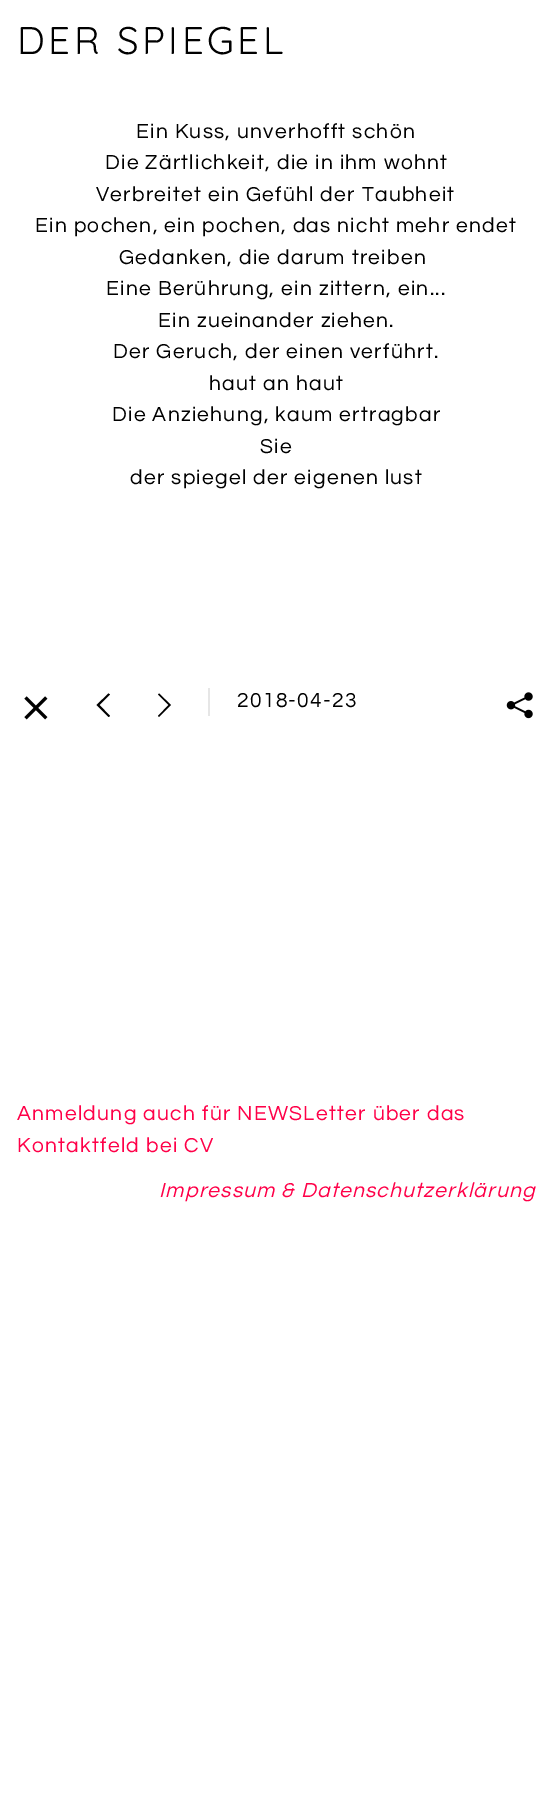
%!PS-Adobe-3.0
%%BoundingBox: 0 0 553 1820
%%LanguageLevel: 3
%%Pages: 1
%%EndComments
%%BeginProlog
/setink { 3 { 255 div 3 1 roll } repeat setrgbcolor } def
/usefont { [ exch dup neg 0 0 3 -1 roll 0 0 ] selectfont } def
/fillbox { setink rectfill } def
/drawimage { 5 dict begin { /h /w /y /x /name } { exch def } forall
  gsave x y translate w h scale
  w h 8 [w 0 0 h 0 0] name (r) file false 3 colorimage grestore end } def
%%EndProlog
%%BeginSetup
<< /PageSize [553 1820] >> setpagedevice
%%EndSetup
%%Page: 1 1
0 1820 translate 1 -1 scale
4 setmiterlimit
0 0 553 1820 255 255 255 fillbox
/Quicksand-Regular 38.5 usefont
0 0 0 setink
17 54 moveto 3.5 0 (DER SPIEGEL) ashow
/Questrial-Regular 21 usefont
136 138 moveto 1.3 0 (Ein Kuss, unverhofft schön) ashow
105 169 moveto 1.3 0 (Die Zärtlichkeit, die in ihm wohnt) ashow
96 201 moveto 1.3 0 (Verbreitet ein Gefühl der Taubheit) ashow
35 232 moveto 1.3 0 (Ein pochen, ein pochen, das nicht mehr endet) ashow
119 264 moveto 1.3 0 (Gedanken, die darum treiben) ashow
106 295 moveto 1.3 0 (Eine Berührung, ein zittern, ein...) ashow
158 327 moveto 1.3 0 (Ein zueinander ziehen.) ashow
113 358 moveto 1.3 0 (Der Geruch, der einen verführt.) ashow
209 390 moveto 1.3 0 (haut an haut) ashow
112 421 moveto 1.3 0 (Die Anziehung, kaum ertragbar) ashow
260 453 moveto 1.3 0 (Sie) ashow
130 484 moveto 1.3 0 (der spiegel der eigenen lust) ashow
(assets/img1.rgb) 24 696 24 24 drawimage
108.5 717 moveto 110 716 lineto 99.5 705 lineto 110 694.5 lineto 108.5 693.5 lineto 96.5 705 lineto closepath fill
171 705 moveto 159 693.5 lineto 158 694.5 lineto 168.5 705 lineto 158 716 lineto 159 717 lineto closepath fill
208 688 2 28 230 230 230 fillbox
0 0 0 setink
237 707 moveto 1.3 0 (2018-04-23) ashow
(assets/img2.rgb) 506 692 27 27 drawimage
255 0 72 setink
17 1120 moveto 1.3 0 (Anmeldung auch für NEWSLetter über das) ashow
17 1152 moveto 1.3 0 (Kontaktfeld bei CV) ashow
/Questrial-Italic 21 usefont
159 1197 moveto 1.3 0 (Impressum & Datenschutzerklärung) ashow
showpage
%%EOF
